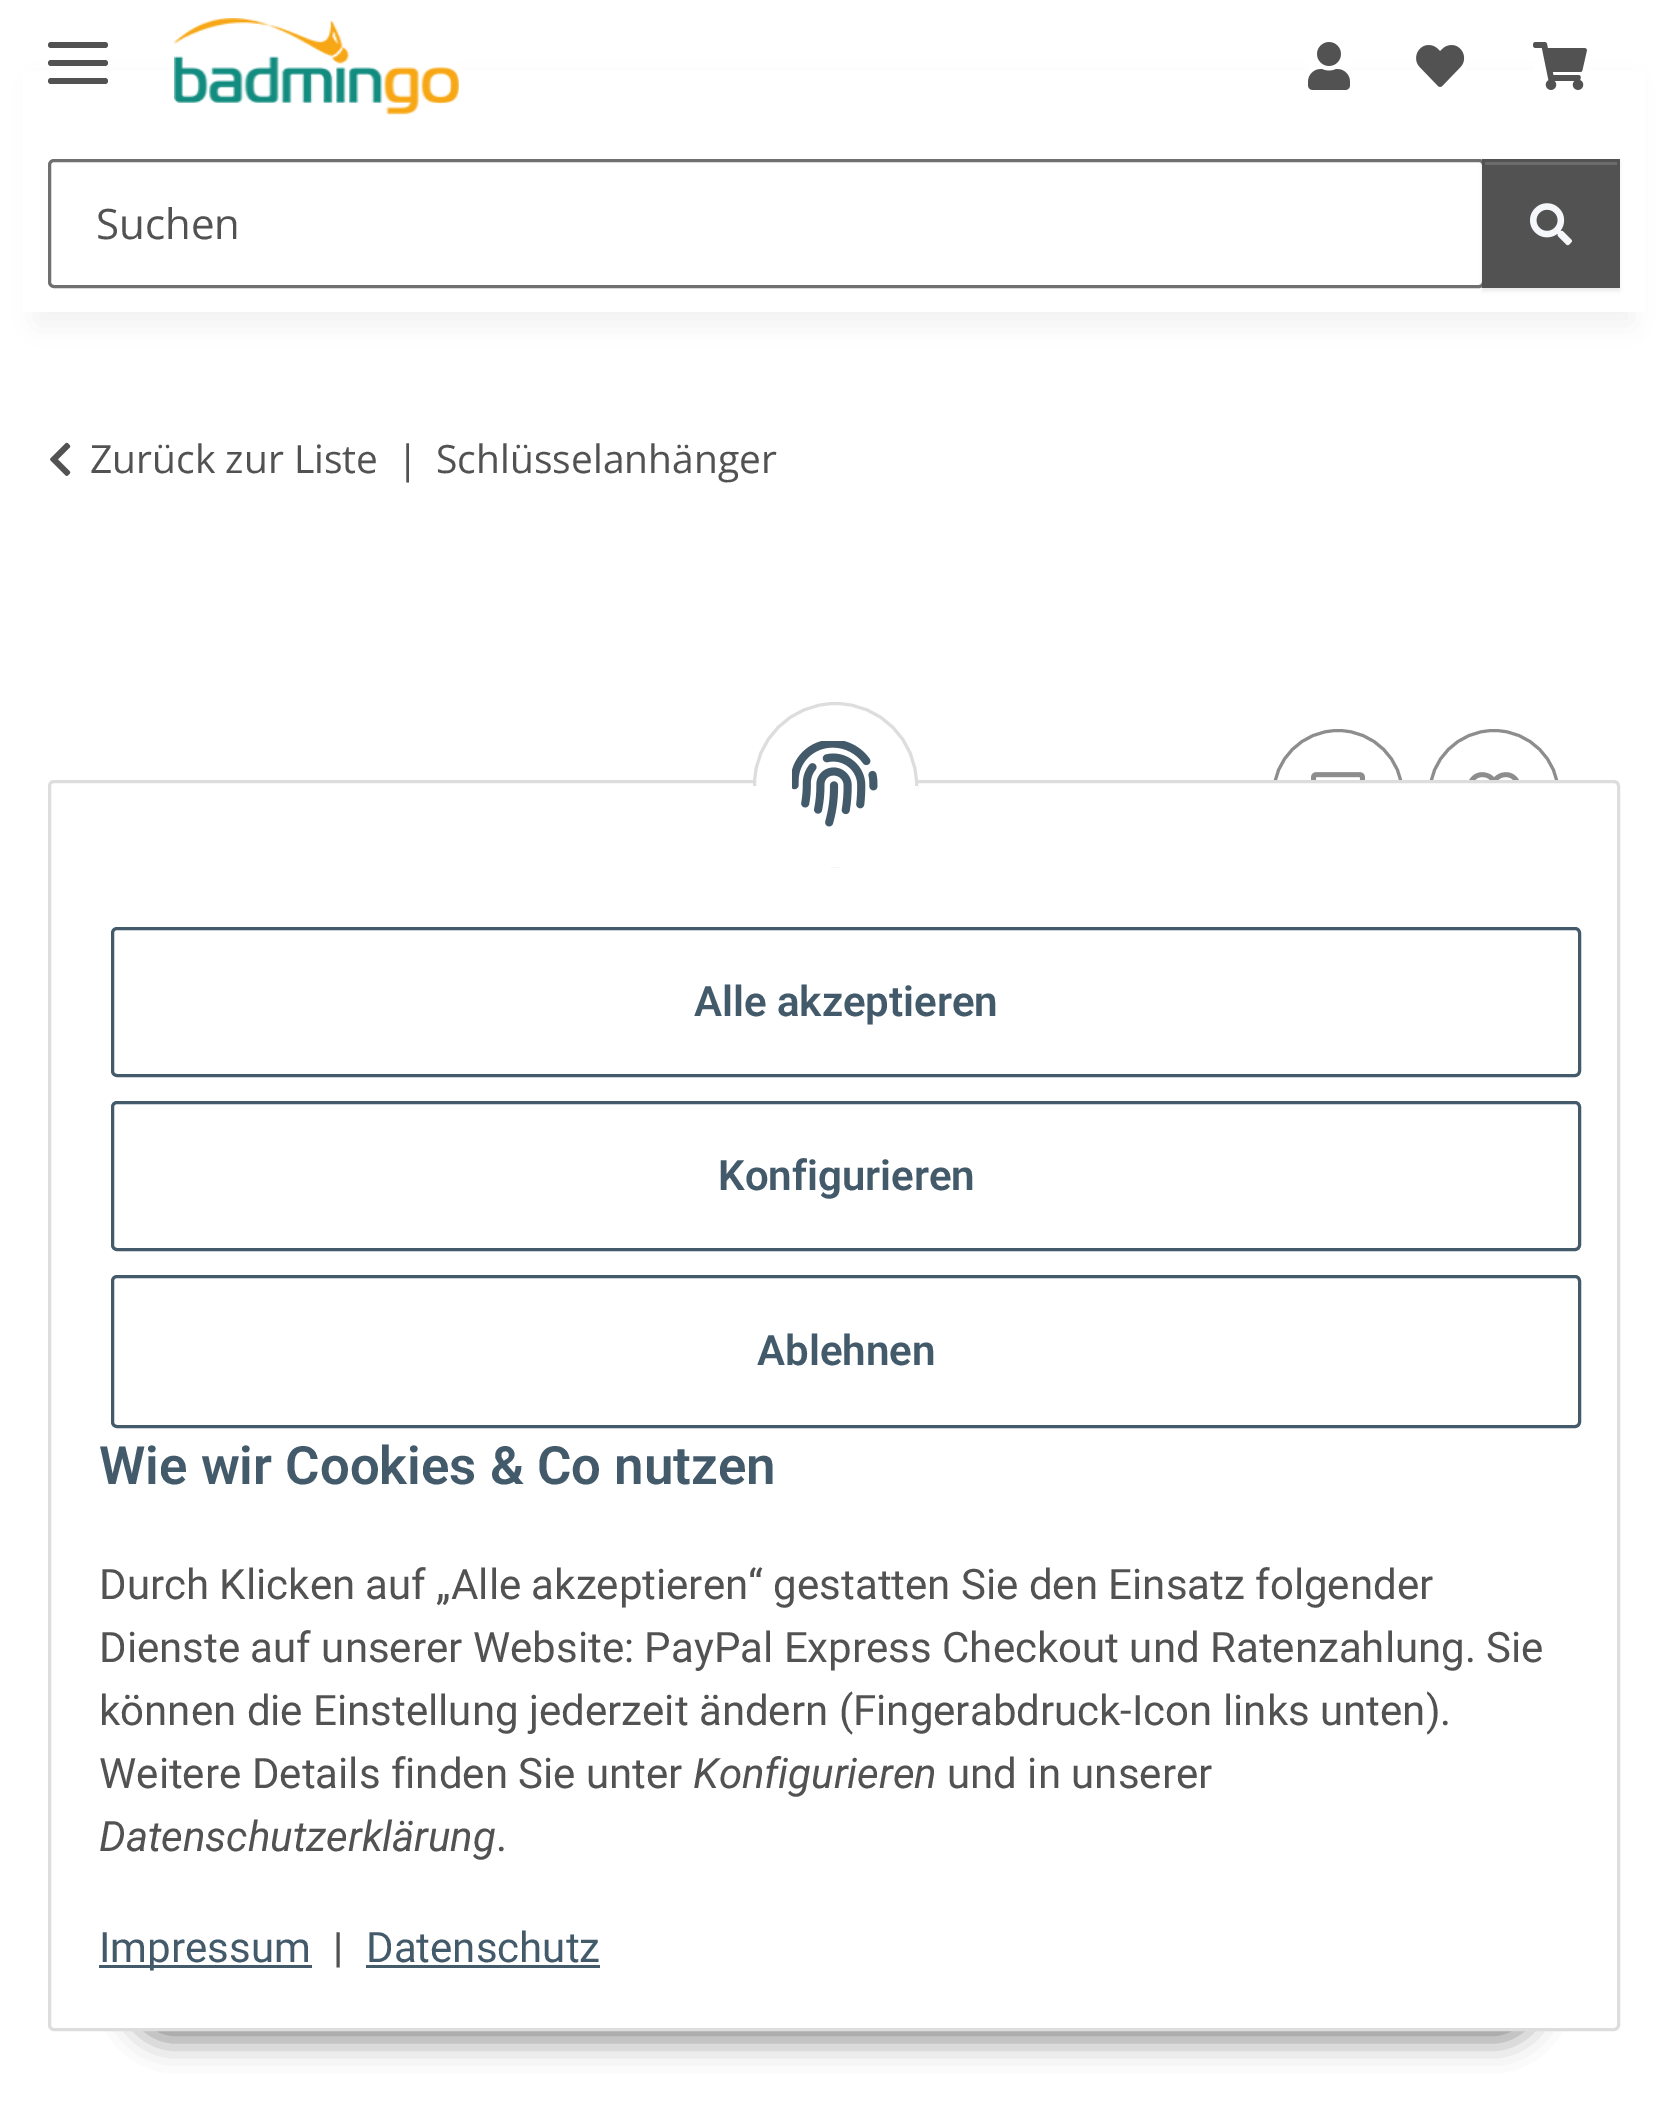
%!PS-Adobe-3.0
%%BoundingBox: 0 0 1668 2126
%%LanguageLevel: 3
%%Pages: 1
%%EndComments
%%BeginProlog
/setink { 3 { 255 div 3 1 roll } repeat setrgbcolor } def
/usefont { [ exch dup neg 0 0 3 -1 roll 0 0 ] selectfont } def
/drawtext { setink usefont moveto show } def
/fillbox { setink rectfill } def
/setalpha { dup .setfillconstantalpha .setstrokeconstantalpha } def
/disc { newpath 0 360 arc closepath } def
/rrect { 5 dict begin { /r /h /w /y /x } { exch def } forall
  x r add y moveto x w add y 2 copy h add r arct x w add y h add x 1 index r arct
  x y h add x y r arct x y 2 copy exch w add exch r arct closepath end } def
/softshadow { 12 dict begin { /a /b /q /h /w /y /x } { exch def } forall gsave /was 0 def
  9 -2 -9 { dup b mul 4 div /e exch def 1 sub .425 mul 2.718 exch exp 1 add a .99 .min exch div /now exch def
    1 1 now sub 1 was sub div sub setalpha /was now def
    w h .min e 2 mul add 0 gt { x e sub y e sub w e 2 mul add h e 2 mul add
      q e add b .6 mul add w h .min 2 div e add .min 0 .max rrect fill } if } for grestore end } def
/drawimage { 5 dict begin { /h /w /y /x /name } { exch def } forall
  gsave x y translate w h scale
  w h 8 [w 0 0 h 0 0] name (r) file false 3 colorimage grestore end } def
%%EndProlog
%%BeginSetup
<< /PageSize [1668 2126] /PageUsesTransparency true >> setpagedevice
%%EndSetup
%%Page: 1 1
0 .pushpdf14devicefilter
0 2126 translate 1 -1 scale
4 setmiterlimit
0 0 1668 2126 255 255 255 fillbox
0 0 0 setink
36 84 1596 240 0 13.5 0.06 softshadow
23 71 1622 241 255 255 255 fillbox
82 82 82 setink
48 60 60 6 3 rrect fill
48 42 60 6 3 rrect fill
48 78 60 6 3 rrect fill
(assets/img1.rgb) 174 18 285 97 drawimage
(assets/img2.rgb) 1308 42 42 48 drawimage
(assets/img3.rgb) 1416 45 49 42 drawimage
(assets/img4.rgb) 1533 42 54 48 drawimage
112 112 112 setink
3 setlinewidth
49.5 160.5 1434 126 4.5 rrect stroke
(Suchen) 96 239 /OpenSans-Regular 42 82 82 82 drawtext
0 0 0 setink
1482 162 138 129 0 1.5 0.07 softshadow
1482 159 138 129 82 82 82 fillbox
1485 162 132 3 108 108 108 fillbox
(assets/img5.rgb) 1530 203 42 43 drawimage
(assets/img6.rgb) 50 442 21 34 drawimage
(Zurück zur Liste) 90 473 /OpenSans-Regular 39 82 82 82 drawtext
(|) 397 473 /OpenSans-Regular 39 82 82 82 drawtext
(Schlüsselanhänger) 436 473 /OpenSans-Regular 39 82 82 82 drawtext
141 141 141 setink
1338 795 64.5 disc stroke
(assets/img7.rgb) 1311 772 54 8 drawimage
1494 795 64.5 disc stroke
(assets/img8.rgb) 1469 772 50 8 drawimage
0 0 0 setink
129 1944 1410 96 48 15 0.45 softshadow
255 255 255 setink
49.5 781.5 1569 1248 4.5 rrect gsave fill grestore
221 221 221 setink
stroke
255 255 255 setink
835.5 784.5 81 disc gsave fill grestore
221 221 221 setink
stroke
753 786 165 81 255 255 255 fillbox
(assets/img9.rgb) 792 741 86 86 drawimage
67 90 107 setink
112.5 928.5 1467 147 4.5 rrect stroke
(Alle akzeptieren) 694 1016 /Roboto-SemiBold 42 67 90 107 drawtext
112.5 1102.5 1467 147 4.5 rrect stroke
(Konfigurieren) 718 1190 /Roboto-SemiBold 42 67 90 107 drawtext
112.5 1276.5 1467 150 4.5 rrect stroke
(Ablehnen) 757 1365 /Roboto-SemiBold 42 67 90 107 drawtext
(Wie wir Cookies & Co nutzen) 99 1484 /Roboto-SemiBold 52.75 67 90 107 drawtext
(Durch Klicken auf „Alle akzeptieren“ gestatten Sie den Einsatz folgender) 99 1599 /Roboto-Regular 42 82 82 82 drawtext
(Dienste auf unserer Website: PayPal Express Checkout und Ratenzahlung. Sie) 99 1662 /Roboto-Regular 42 82 82 82 drawtext
(können die Einstellung jederzeit ändern \(Fingerabdruck-Icon links unten\).) 99 1725 /Roboto-Regular 42 82 82 82 drawtext
(Weitere Details finden Sie unter) 99 1788 /Roboto-Regular 42 82 82 82 drawtext
(Konfigurieren) 693 1788 /Roboto-Italic 42 82 82 82 drawtext
(und in unserer) 947 1788 /Roboto-Regular 42 82 82 82 drawtext
(Datenschutzerklärung) 99 1851 /Roboto-Italic 42 82 82 82 drawtext
(.) 496 1851 /Roboto-Regular 42 82 82 82 drawtext
99 1965 213 3 67 90 107 fillbox
(Impressum) 99 1962 /Roboto-Regular 42 67 90 107 drawtext
(|) 333 1962 /Roboto-Regular 42 82 82 82 drawtext
(Datenschutz) 366 1962 /Roboto-Regular 42 67 90 107 drawtext
366 1965 234 3 67 90 107 fillbox
.poppdf14devicefilter showpage
%%EOF
